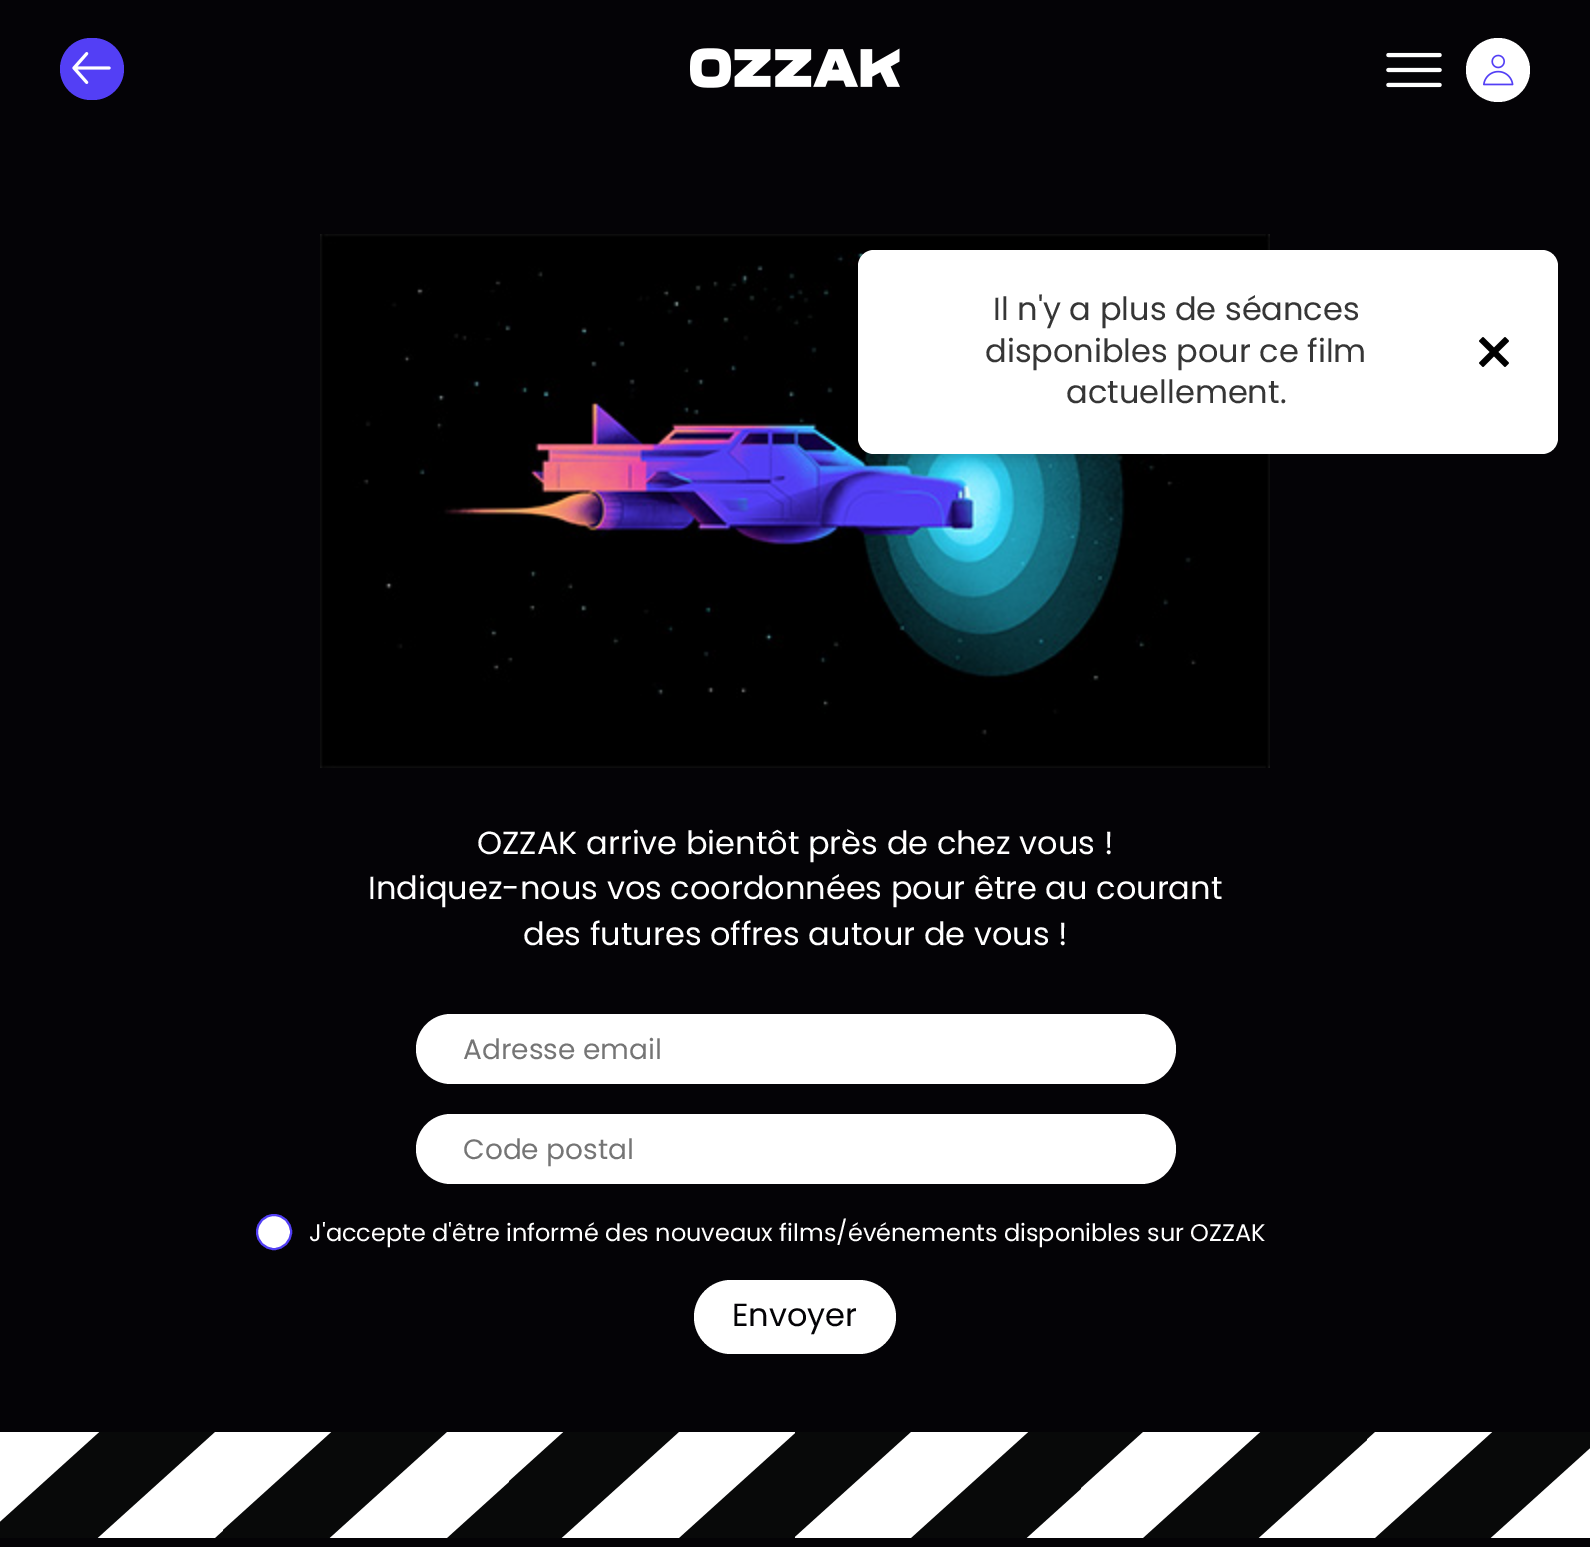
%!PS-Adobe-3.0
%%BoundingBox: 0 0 1590 1547
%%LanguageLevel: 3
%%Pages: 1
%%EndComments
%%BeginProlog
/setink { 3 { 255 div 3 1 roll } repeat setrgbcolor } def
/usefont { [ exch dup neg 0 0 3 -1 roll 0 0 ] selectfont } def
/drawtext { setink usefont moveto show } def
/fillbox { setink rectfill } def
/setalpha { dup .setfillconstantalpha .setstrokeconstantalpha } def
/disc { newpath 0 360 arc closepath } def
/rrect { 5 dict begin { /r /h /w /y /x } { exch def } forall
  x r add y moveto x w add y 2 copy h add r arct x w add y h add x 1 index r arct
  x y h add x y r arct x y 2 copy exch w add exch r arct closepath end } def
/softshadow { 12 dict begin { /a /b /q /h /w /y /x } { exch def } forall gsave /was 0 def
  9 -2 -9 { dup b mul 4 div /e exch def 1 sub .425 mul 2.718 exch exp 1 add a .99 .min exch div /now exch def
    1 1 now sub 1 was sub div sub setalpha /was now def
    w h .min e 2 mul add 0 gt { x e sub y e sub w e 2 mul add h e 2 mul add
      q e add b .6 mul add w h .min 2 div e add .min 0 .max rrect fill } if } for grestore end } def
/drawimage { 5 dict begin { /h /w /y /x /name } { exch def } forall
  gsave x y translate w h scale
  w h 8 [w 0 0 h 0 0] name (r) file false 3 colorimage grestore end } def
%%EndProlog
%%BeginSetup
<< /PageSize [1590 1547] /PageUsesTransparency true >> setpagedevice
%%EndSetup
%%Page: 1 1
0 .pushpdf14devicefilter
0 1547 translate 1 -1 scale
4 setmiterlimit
0 0 1590 1547 4 3 6 fillbox
(assets/img1.rgb) 690 48 210 40 drawimage
(assets/img2.rgb) 1386 52 56 36 drawimage
255 255 255 setink
1498 70 32 disc fill
(assets/img3.rgb) 1483 54 31 32 drawimage
83 63 245 setink
60 38 64 62 31 rrect fill
(assets/img4.rgb) 72 52 39 32 drawimage
(assets/img6.rgb) 320 234 950 534 drawimage
0 0 0 setink
858 256 700 204 16 3 0.05 softshadow
858 256 700 204 16 10 0.1 softshadow
255 255 255 setink
858 250 700 204 16 rrect fill
(Il n'y a plus de séances) 993 320 /Poppins-Regular 32 54 54 54 drawtext
(disponibles pour ce film) 985 362 /Poppins-Regular 32 54 54 54 drawtext
(actuellement.) 1066 403 /Poppins-Regular 32 54 54 54 drawtext
(assets/img5.rgb) 1479 337 30 30 drawimage
(OZZAK arrive bientôt près de chez vous !) 477 854 /Poppins-Regular 32 255 255 255 drawtext
(Indiquez-nous vos coordonnées pour être au courant) 368 899 /Poppins-Regular 32 255 255 255 drawtext
(des futures offres autour de vous !) 523 945 /Poppins-Regular 32 255 255 255 drawtext
416 1014 760 70 35 rrect fill
(Adresse email) 463 1059 /Poppins-Regular 28 117 117 117 drawtext
255 255 255 setink
416 1114 760 70 35 rrect fill
(Code postal) 463 1159 /Poppins-Regular 28 117 117 117 drawtext
255 255 255 setink
274 1232 17 disc gsave fill grestore
83 63 245 setink
2 setlinewidth
stroke
(J'accepte d'être informé des nouveaux films/événements disponibles sur OZZAK) 309 1241 /Poppins-Regular 24 255 255 255 drawtext
694 1280 202 74 37 rrect fill
(Envoyer) 732 1326 /Poppins-Regular 32 4 3 6 drawtext
0 1432 1590 106 255 255 255 fillbox
(assets/img7.rgb) 0 1432 1590 106 drawimage
.poppdf14devicefilter showpage
%%EOF
